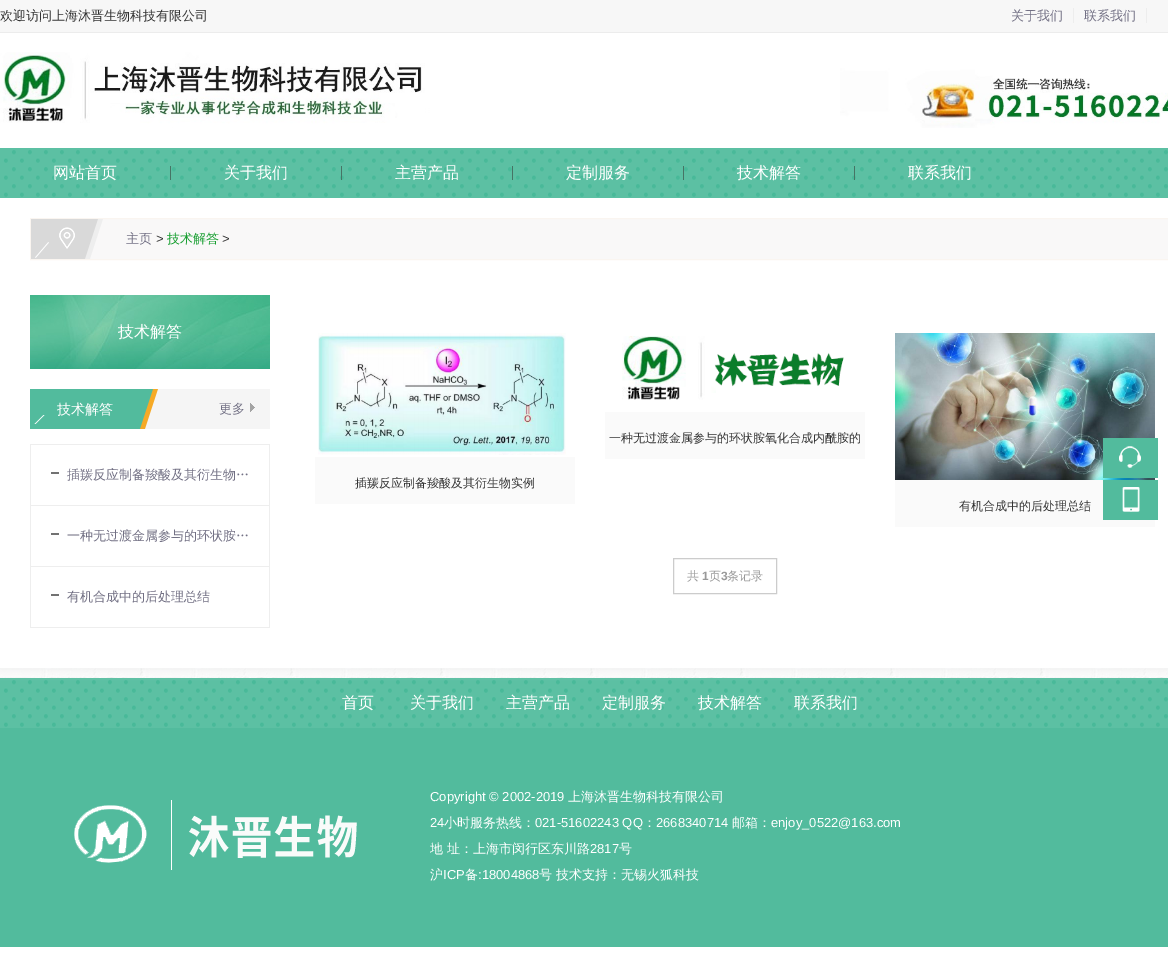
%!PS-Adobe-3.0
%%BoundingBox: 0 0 1168 960
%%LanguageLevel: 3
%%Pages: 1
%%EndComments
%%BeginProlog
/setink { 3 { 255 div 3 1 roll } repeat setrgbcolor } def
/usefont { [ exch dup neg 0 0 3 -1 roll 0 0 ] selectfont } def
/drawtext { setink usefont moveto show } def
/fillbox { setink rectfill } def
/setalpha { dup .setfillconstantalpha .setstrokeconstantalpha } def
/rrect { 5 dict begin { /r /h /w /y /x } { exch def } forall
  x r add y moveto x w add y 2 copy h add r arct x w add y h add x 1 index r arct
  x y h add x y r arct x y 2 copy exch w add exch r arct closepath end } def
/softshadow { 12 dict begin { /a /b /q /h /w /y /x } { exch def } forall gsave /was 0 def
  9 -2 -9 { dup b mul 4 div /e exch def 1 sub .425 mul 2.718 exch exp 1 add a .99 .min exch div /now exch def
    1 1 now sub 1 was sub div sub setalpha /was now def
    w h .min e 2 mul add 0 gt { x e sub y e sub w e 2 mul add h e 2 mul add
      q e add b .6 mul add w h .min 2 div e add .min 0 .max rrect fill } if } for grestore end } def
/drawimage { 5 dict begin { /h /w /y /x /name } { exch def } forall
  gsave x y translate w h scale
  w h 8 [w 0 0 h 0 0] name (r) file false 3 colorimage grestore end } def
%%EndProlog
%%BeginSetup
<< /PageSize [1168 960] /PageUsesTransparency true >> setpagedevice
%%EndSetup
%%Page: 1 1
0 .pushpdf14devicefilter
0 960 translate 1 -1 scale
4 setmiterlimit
0 0 1168 960 255 255 255 fillbox
0 0 1168 32 247 247 247 fillbox
0 32 1168 1 236 236 236 fillbox
(欢迎访问上海沐晋生物科技有限公司) 0 20 /WenQuanYiZenHei-Medium 13 51 51 51 drawtext
(关于我们) 1011 20 /WenQuanYiZenHei-Medium 13 114 112 132 drawtext
1073 8 1 15 237 237 237 fillbox
(联系我们) 1084 20 /WenQuanYiZenHei-Medium 13 114 112 132 drawtext
1146 8 1 15 237 237 237 fillbox
(assets/img1.rgb) 0 52 1168 76 drawimage
(assets/img3.rgb) 0 668 1168 10 drawimage
(assets/img2.rgb) 0 678 1168 50 drawimage
238 238 238 setink
0 199 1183 470 0 5 1 softshadow
(assets/img2.rgb) 0 148 1168 50 drawimage
(网站首页) 53 178 /WenQuanYiZenHei-Medium 16 255 255 255 drawtext
170 166 1 14 70 116 101 fillbox
(关于我们) 224 178 /WenQuanYiZenHei-Medium 16 255 255 255 drawtext
341 166 1 14 70 116 101 fillbox
(主营产品) 395 178 /WenQuanYiZenHei-Medium 16 255 255 255 drawtext
512 166 1 14 70 116 101 fillbox
(定制服务) 566 178 /WenQuanYiZenHei-Medium 16 255 255 255 drawtext
683 166 1 14 70 116 101 fillbox
(技术解答) 737 178 /WenQuanYiZenHei-Medium 16 255 255 255 drawtext
854 166 1 14 70 116 101 fillbox
(联系我们) 908 178 /WenQuanYiZenHei-Medium 16 255 255 255 drawtext
0 198 1168 470 255 255 255 fillbox
90 219 1078 40 249 248 248 fillbox
250 245 240 setink
30.5 218.5 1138 41 rectstroke
(assets/img4.rgb) 31 219 72 40 drawimage
(主页) 126 243 /WenQuanYiZenHei-Medium 13 114 112 132 drawtext
(>) 156 243 /LiberationSans-Regular 13 51 51 51 drawtext
(技术解答) 167 243 /WenQuanYiZenHei-Medium 13 23 158 48 drawtext
(>) 222 243 /LiberationSans-Regular 13 51 51 51 drawtext
(assets/img5.rgb) 30 295 240 74 drawimage
(技术解答) 118 337 /WenQuanYiZenHei-Medium 16 255 255 255 drawtext
145 389 125 40 245 245 245 fillbox
(assets/img6.rgb) 30 389 128 40 drawimage
(技术解答) 57 414 /WenQuanYiZenHei-Medium 14 255 255 255 drawtext
43.5 415 moveto 44.5 415 lineto 35.5 424 lineto 34.5 424 lineto closepath fill
(assets/img7.rgb) 250 403 5 9 drawimage
(更多) 219 413 /WenQuanYiZenHei-Medium 13 114 112 132 drawtext
30 627 240 1 238 238 238 fillbox
30 444 240 1 238 238 238 fillbox
269 444 1 61 238 238 238 fillbox
30 444 1 61 238 238 238 fillbox
51 472 8 2 114 114 114 fillbox
(插羰反应制备羧酸及其衍生物…) 67 479 /WenQuanYiZenHei-Medium 13 114 112 132 drawtext
30 505 240 1 238 238 238 fillbox
269 505 1 61 238 238 238 fillbox
30 505 1 61 238 238 238 fillbox
51 533 8 2 114 114 114 fillbox
(一种无过渡金属参与的环状胺…) 67 540 /WenQuanYiZenHei-Medium 13 114 112 132 drawtext
30 566 240 1 238 238 238 fillbox
269 566 1 61 238 238 238 fillbox
30 566 1 61 238 238 238 fillbox
51 594 8 2 114 114 114 fillbox
(有机合成中的后处理总结) 67 601 /WenQuanYiZenHei-Medium 13 114 112 132 drawtext
(assets/img8.rgb) 622 336 222 64 drawimage
605 412 260 47 250 250 250 fillbox
(一种无过渡金属参与的环状胺氧化合成内酰胺的) 609 442 /WenQuanYiZenHei-Medium 12 51 51 51 drawtext
(assets/img9.rgb) 318 333 248 122 drawimage
315 457 260 47 250 250 250 fillbox
(插羰反应制备羧酸及其衍生物实例) 355 487 /WenQuanYiZenHei-Medium 12 51 51 51 drawtext
(assets/img10.rgb) 895 333 260 147 drawimage
895 480 260 47 250 250 250 fillbox
(有机合成中的后处理总结) 959 510 /WenQuanYiZenHei-Medium 12 51 51 51 drawtext
204 204 204 setink
673.5 558.5 103 35 rectstroke
(共) 687 580 /WenQuanYiZenHei-Medium 12 153 153 153 drawtext
(1) 702 580 /LiberationSans-Bold 12 153 153 153 drawtext
(页) 709 580 /WenQuanYiZenHei-Medium 12 153 153 153 drawtext
(3) 721 580 /LiberationSans-Bold 12 153 153 153 drawtext
(条记录) 727 580 /WenQuanYiZenHei-Medium 12 153 153 153 drawtext
1103 438 55 40 82 187 157 fillbox
(assets/img11.rgb) 1119 446 22 22 drawimage
1103 480 55 40 82 187 157 fillbox
(assets/img12.rgb) 1122 487 18 25 drawimage
(首页) 342 708 /WenQuanYiZenHei-Medium 16 255 255 255 drawtext
(关于我们) 410 708 /WenQuanYiZenHei-Medium 16 255 255 255 drawtext
(主营产品) 506 708 /WenQuanYiZenHei-Medium 16 255 255 255 drawtext
(定制服务) 602 708 /WenQuanYiZenHei-Medium 16 255 255 255 drawtext
(技术解答) 698 708 /WenQuanYiZenHei-Medium 16 255 255 255 drawtext
(联系我们) 794 708 /WenQuanYiZenHei-Medium 16 255 255 255 drawtext
0 728 1168 219 82 187 157 fillbox
(assets/img13.rgb) 74 800 283 70 drawimage
(Copyright © 2002-2019) 430 801 /LiberationSans-Regular 13 255 255 255 drawtext
(上海沐晋生物科技有限公司) 568 801 /WenQuanYiZenHei-Medium 13 255 255 255 drawtext
(24) 430 827 /LiberationSans-Regular 13 255 255 255 drawtext
(小时服务热线：) 444 827 /WenQuanYiZenHei-Medium 13 255 255 255 drawtext
(021-51602243 QQ) 535 827 /LiberationSans-Regular 13 255 255 255 drawtext
(：) 643 827 /WenQuanYiZenHei-Medium 13 255 255 255 drawtext
(2668340714) 656 827 /LiberationSans-Regular 13 255 255 255 drawtext
(邮箱：) 732 827 /WenQuanYiZenHei-Medium 13 255 255 255 drawtext
(enjoy_0522@163.com) 771 827 /LiberationSans-Regular 13 255 255 255 drawtext
(地 址：上海市闵行区东川路) 430 853 /WenQuanYiZenHei-Medium 13 255 255 255 drawtext
(2817) 590 853 /LiberationSans-Regular 13 255 255 255 drawtext
(号) 619 853 /WenQuanYiZenHei-Medium 13 255 255 255 drawtext
(沪) 430 879 /WenQuanYiZenHei-Medium 13 255 255 255 drawtext
(ICP) 443 879 /LiberationSans-Regular 13 255 255 255 drawtext
(备) 465 879 /WenQuanYiZenHei-Medium 13 255 255 255 drawtext
(:18004868) 478 879 /LiberationSans-Regular 13 255 255 255 drawtext
(号 技术支持：无锡火狐科技) 539 879 /WenQuanYiZenHei-Medium 13 255 255 255 drawtext
.poppdf14devicefilter showpage
%%EOF
